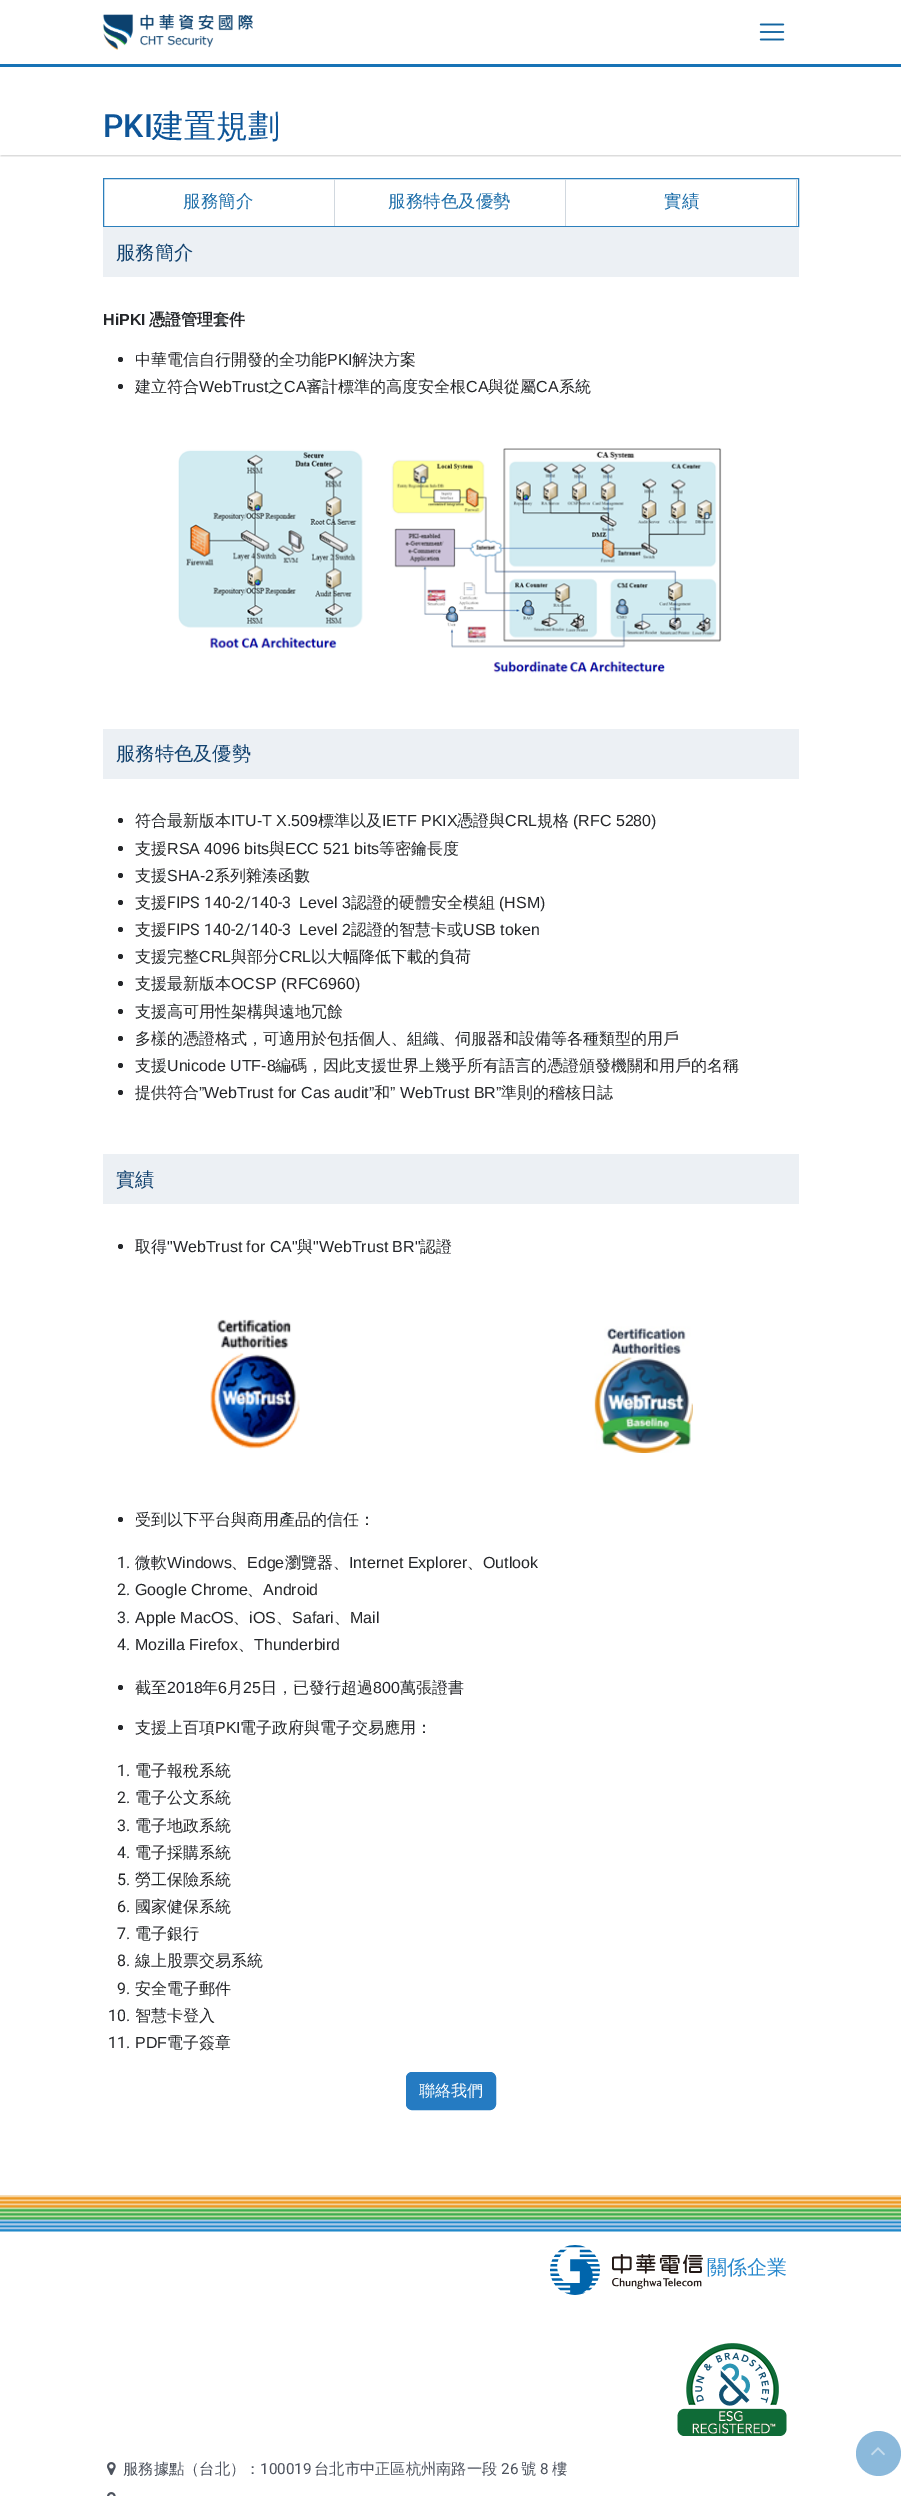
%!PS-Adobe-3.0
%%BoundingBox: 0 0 901 2496
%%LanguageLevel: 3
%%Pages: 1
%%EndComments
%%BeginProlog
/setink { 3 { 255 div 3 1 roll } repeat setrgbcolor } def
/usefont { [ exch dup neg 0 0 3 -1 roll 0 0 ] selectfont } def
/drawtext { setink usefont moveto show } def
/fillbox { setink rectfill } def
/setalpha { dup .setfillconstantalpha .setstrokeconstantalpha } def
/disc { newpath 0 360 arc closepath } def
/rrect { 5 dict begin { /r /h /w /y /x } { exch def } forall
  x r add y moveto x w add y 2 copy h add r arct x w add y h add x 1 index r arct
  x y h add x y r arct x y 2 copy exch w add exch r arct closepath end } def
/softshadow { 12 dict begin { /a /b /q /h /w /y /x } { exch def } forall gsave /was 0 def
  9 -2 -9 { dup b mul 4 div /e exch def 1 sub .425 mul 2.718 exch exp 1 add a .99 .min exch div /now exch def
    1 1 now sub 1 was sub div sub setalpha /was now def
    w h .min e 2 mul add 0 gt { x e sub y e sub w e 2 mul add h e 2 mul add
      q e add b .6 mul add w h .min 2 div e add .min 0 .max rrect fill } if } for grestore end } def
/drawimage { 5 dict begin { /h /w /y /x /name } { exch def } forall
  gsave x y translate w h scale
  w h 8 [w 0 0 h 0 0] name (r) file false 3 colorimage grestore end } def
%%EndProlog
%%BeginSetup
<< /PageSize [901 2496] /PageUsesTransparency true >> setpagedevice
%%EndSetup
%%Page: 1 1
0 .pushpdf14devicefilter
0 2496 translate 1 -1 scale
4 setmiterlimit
0 0 901 2496 255 255 255 fillbox
gsave
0 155 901 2 rectclip
0 0 0 setink
1 67 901 89 0 1 0.2 softshadow
grestore
0 64 901 3 23 115 182 fillbox
(assets/img1.rgb) 102 14 151 36 drawimage
(assets/img2.rgb) 759 23 26 18 drawimage
(PKI) 103 137 /Roboto-Medium 32 14 85 152 drawtext
(建置規劃) 152 137 /WenQuanYiZenHei-Medium 32 14 85 152 drawtext
44 127 188 setink
103.5 178.5 695 48 rectstroke
334 179 1 47 209 216 223 fillbox
(服務簡介) 183 207 /WenQuanYiZenHei-Medium 17.5 26 108 168 drawtext
565 179 1 47 209 216 223 fillbox
(服務特色及優勢) 388 207 /WenQuanYiZenHei-Medium 17.5 26 108 168 drawtext
796 179 1 47 209 216 223 fillbox
(實績) 664 207 /WenQuanYiZenHei-Medium 17.5 26 108 168 drawtext
103 227 696 50 236 240 244 fillbox
(服務簡介) 116 259 /WenQuanYiZenHei-Medium 19.25 17 65 110 drawtext
(HiPKI) 103 325 /LiberationSans-Bold 16 36 38 41 drawtext
(憑證管理套件) 149 325 /WenQuanYiZenHei-Bold 16 36 38 41 drawtext
120.5 359.5 2.5 disc fill
(中華電信自行開發的全功能) 135 365 /WenQuanYiZenHei-Medium 16 36 38 41 drawtext
(PKI) 327 365 /LiberationSans-Regular 16 36 38 41 drawtext
(解決方案) 352 365 /WenQuanYiZenHei-Medium 16 36 38 41 drawtext
120.5 386.5 2.5 disc fill
(建立符合) 135 392 /WenQuanYiZenHei-Medium 16 36 38 41 drawtext
(WebTrust) 199 392 /LiberationSans-Regular 16 36 38 41 drawtext
(之) 268 392 /WenQuanYiZenHei-Medium 16 36 38 41 drawtext
(CA) 284 392 /LiberationSans-Regular 16 36 38 41 drawtext
(審計標準的高度安全根) 306 392 /WenQuanYiZenHei-Medium 16 36 38 41 drawtext
(CA) 466 392 /LiberationSans-Regular 16 36 38 41 drawtext
(與從屬) 488 392 /WenQuanYiZenHei-Medium 16 36 38 41 drawtext
(CA) 536 392 /LiberationSans-Regular 16 36 38 41 drawtext
(系統) 559 392 /WenQuanYiZenHei-Medium 16 36 38 41 drawtext
(assets/img3.rgb) 178 448 544 225 drawimage
103 729 696 50 236 240 244 fillbox
(服務特色及優勢) 116 760 /WenQuanYiZenHei-Medium 19.25 17 65 110 drawtext
36 38 41 setink
120.5 820.5 2.5 disc fill
(符合最新版本) 135 826 /WenQuanYiZenHei-Medium 16 36 38 41 drawtext
(ITU-T X.509) 231 826 /LiberationSans-Regular 16 36 38 41 drawtext
(標準以及) 318 826 /WenQuanYiZenHei-Medium 16 36 38 41 drawtext
(IETF PKIX) 382 826 /LiberationSans-Regular 16 36 38 41 drawtext
(憑證與) 457 826 /WenQuanYiZenHei-Medium 16 36 38 41 drawtext
(CRL) 505 826 /LiberationSans-Regular 16 36 38 41 drawtext
(規格) 537 826 /WenQuanYiZenHei-Medium 16 36 38 41 drawtext
(\(RFC 5280\)) 573 826 /LiberationSans-Regular 16 36 38 41 drawtext
120.5 848.5 2.5 disc fill
(支援) 135 854 /WenQuanYiZenHei-Medium 16 36 38 41 drawtext
(RSA 4096 bits) 167 854 /LiberationSans-Regular 16 36 38 41 drawtext
(與) 269 854 /WenQuanYiZenHei-Medium 16 36 38 41 drawtext
(ECC 521 bits) 285 854 /LiberationSans-Regular 16 36 38 41 drawtext
(等密鑰長度) 379 854 /WenQuanYiZenHei-Medium 16 36 38 41 drawtext
120.5 875.5 2.5 disc fill
(支援) 135 881 /WenQuanYiZenHei-Medium 16 36 38 41 drawtext
(SHA-2) 167 881 /LiberationSans-Regular 16 36 38 41 drawtext
(系列雜湊函數) 214 881 /WenQuanYiZenHei-Medium 16 36 38 41 drawtext
120.5 902.5 2.5 disc fill
(支援) 135 908 /WenQuanYiZenHei-Medium 16 36 38 41 drawtext
(FIPS 140-2/140-3) 167 908 /Roboto-Regular 16 36 38 41 drawtext
(Level 3) 299 908 /LiberationSans-Regular 16 36 38 41 drawtext
(認證的硬體安全模組) 351 908 /WenQuanYiZenHei-Medium 16 36 38 41 drawtext
(\(HSM\)) 499 908 /LiberationSans-Regular 16 36 38 41 drawtext
120.5 929.5 2.5 disc fill
(支援) 135 935 /WenQuanYiZenHei-Medium 16 36 38 41 drawtext
(FIPS 140-2/140-3) 167 935 /Roboto-Regular 16 36 38 41 drawtext
(Level 2) 299 935 /LiberationSans-Regular 16 36 38 41 drawtext
(認證的智慧卡或) 351 935 /WenQuanYiZenHei-Medium 16 36 38 41 drawtext
(USB token) 463 935 /LiberationSans-Regular 16 36 38 41 drawtext
120.5 956.5 2.5 disc fill
(支援完整) 135 962 /WenQuanYiZenHei-Medium 16 36 38 41 drawtext
(CRL) 199 962 /LiberationSans-Regular 16 36 38 41 drawtext
(與部分) 231 962 /WenQuanYiZenHei-Medium 16 36 38 41 drawtext
(CRL) 279 962 /LiberationSans-Regular 16 36 38 41 drawtext
(以大幅降低下載的負荷) 311 962 /WenQuanYiZenHei-Medium 16 36 38 41 drawtext
120.5 983.5 2.5 disc fill
(支援最新版本) 135 989 /WenQuanYiZenHei-Medium 16 36 38 41 drawtext
(OCSP \(RFC6960\)) 231 989 /LiberationSans-Regular 16 36 38 41 drawtext
120.5 1011.5 2.5 disc fill
(支援高可用性架構與遠地冗餘) 135 1017 /WenQuanYiZenHei-Medium 16 36 38 41 drawtext
120.5 1038.5 2.5 disc fill
(多樣的憑證格式，可適用於包括個人、組織、伺服器和設備等各種類型的用戶) 135 1044 /WenQuanYiZenHei-Medium 16 36 38 41 drawtext
120.5 1065.5 2.5 disc fill
(支援) 135 1071 /WenQuanYiZenHei-Medium 16 36 38 41 drawtext
(Unicode UTF-8) 167 1071 /LiberationSans-Regular 16 36 38 41 drawtext
(編碼，因此支援世界上幾乎所有語言的憑證頒發機關和用戶的名稱) 275 1071 /WenQuanYiZenHei-Medium 16 36 38 41 drawtext
120.5 1092.5 2.5 disc fill
(提供符合) 135 1098 /WenQuanYiZenHei-Medium 16 36 38 41 drawtext
(”WebTrust for Cas audit”) 199 1098 /LiberationSans-Regular 16 36 38 41 drawtext
(和) 374 1098 /WenQuanYiZenHei-Medium 16 36 38 41 drawtext
(” WebTrust BR”) 390 1098 /LiberationSans-Regular 16 36 38 41 drawtext
(準則的稽核日誌) 501 1098 /WenQuanYiZenHei-Medium 16 36 38 41 drawtext
103 1154 696 50 236 240 244 fillbox
(實績) 116 1186 /WenQuanYiZenHei-Medium 19.25 17 65 110 drawtext
36 38 41 setink
120.5 1246.5 2.5 disc fill
(取得) 135 1252 /WenQuanYiZenHei-Medium 16 36 38 41 drawtext
("WebTrust for CA") 167 1252 /LiberationSans-Regular 16 36 38 41 drawtext
(與) 297 1252 /WenQuanYiZenHei-Medium 16 36 38 41 drawtext
("WebTrust BR") 313 1252 /LiberationSans-Regular 16 36 38 41 drawtext
(認證) 420 1252 /WenQuanYiZenHei-Medium 16 36 38 41 drawtext
(assets/img4.rgb) 210 1319 483 134 drawimage
120.5 1519.5 2.5 disc fill
(受到以下平台與商用產品的信任：) 135 1525 /WenQuanYiZenHei-Medium 16 36 38 41 drawtext
(1.) 117 1568 /Roboto-Regular 16 36 38 41 drawtext
(微軟) 135 1568 /WenQuanYiZenHei-Medium 16 36 38 41 drawtext
(Windows) 167 1568 /LiberationSans-Regular 16 36 38 41 drawtext
(、) 231 1568 /WenQuanYiZenHei-Medium 16 36 38 41 drawtext
(Edge) 247 1568 /LiberationSans-Regular 16 36 38 41 drawtext
(瀏覽器、) 285 1568 /WenQuanYiZenHei-Medium 16 36 38 41 drawtext
(Internet Explorer) 349 1568 /LiberationSans-Regular 16 36 38 41 drawtext
(、) 467 1568 /WenQuanYiZenHei-Medium 16 36 38 41 drawtext
(Outlook) 483 1568 /LiberationSans-Regular 16 36 38 41 drawtext
(2.) 117 1595 /Roboto-Regular 16 36 38 41 drawtext
(Google Chrome) 135 1595 /LiberationSans-Regular 16 36 38 41 drawtext
(、) 247 1595 /WenQuanYiZenHei-Medium 16 36 38 41 drawtext
(Android) 263 1595 /LiberationSans-Regular 16 36 38 41 drawtext
(3.) 117 1623 /Roboto-Regular 16 36 38 41 drawtext
(Apple MacOS) 135 1623 /LiberationSans-Regular 16 36 38 41 drawtext
(、) 233 1623 /WenQuanYiZenHei-Medium 16 36 38 41 drawtext
(iOS) 249 1623 /LiberationSans-Regular 16 36 38 41 drawtext
(、) 276 1623 /WenQuanYiZenHei-Medium 16 36 38 41 drawtext
(Safari) 292 1623 /LiberationSans-Regular 16 36 38 41 drawtext
(、) 334 1623 /WenQuanYiZenHei-Medium 16 36 38 41 drawtext
(Mail) 350 1623 /LiberationSans-Regular 16 36 38 41 drawtext
(4.) 117 1650 /Roboto-Regular 16 36 38 41 drawtext
(Mozilla Firefox) 135 1650 /LiberationSans-Regular 16 36 38 41 drawtext
(、) 238 1650 /WenQuanYiZenHei-Medium 16 36 38 41 drawtext
(Thunderbird) 254 1650 /LiberationSans-Regular 16 36 38 41 drawtext
120.5 1687.5 2.5 disc fill
(截至) 135 1693 /WenQuanYiZenHei-Medium 16 36 38 41 drawtext
(2018) 167 1693 /LiberationSans-Regular 16 36 38 41 drawtext
(年) 202 1693 /WenQuanYiZenHei-Medium 16 36 38 41 drawtext
(6) 218 1693 /LiberationSans-Regular 16 36 38 41 drawtext
(月) 227 1693 /WenQuanYiZenHei-Medium 16 36 38 41 drawtext
(25) 243 1693 /LiberationSans-Regular 16 36 38 41 drawtext
(日，已發行超過) 261 1693 /WenQuanYiZenHei-Medium 16 36 38 41 drawtext
(800) 373 1693 /LiberationSans-Regular 16 36 38 41 drawtext
(萬張證書) 400 1693 /WenQuanYiZenHei-Medium 16 36 38 41 drawtext
120.5 1727.5 2.5 disc fill
(支援上百項) 135 1733 /WenQuanYiZenHei-Medium 16 36 38 41 drawtext
(PKI) 215 1733 /LiberationSans-Regular 16 36 38 41 drawtext
(電子政府與電子交易應用：) 240 1733 /WenQuanYiZenHei-Medium 16 36 38 41 drawtext
(1.) 117 1776 /Roboto-Regular 16 36 38 41 drawtext
(電子報稅系統) 135 1776 /WenQuanYiZenHei-Medium 16 36 38 41 drawtext
(2.) 117 1803 /Roboto-Regular 16 36 38 41 drawtext
(電子公文系統) 135 1803 /WenQuanYiZenHei-Medium 16 36 38 41 drawtext
(3.) 117 1831 /Roboto-Regular 16 36 38 41 drawtext
(電子地政系統) 135 1831 /WenQuanYiZenHei-Medium 16 36 38 41 drawtext
(4.) 117 1858 /Roboto-Regular 16 36 38 41 drawtext
(電子採購系統) 135 1858 /WenQuanYiZenHei-Medium 16 36 38 41 drawtext
(5.) 117 1885 /Roboto-Regular 16 36 38 41 drawtext
(勞工保險系統) 135 1885 /WenQuanYiZenHei-Medium 16 36 38 41 drawtext
(6.) 117 1912 /Roboto-Regular 16 36 38 41 drawtext
(國家健保系統) 135 1912 /WenQuanYiZenHei-Medium 16 36 38 41 drawtext
(7.) 117 1939 /Roboto-Regular 16 36 38 41 drawtext
(電子銀行) 135 1939 /WenQuanYiZenHei-Medium 16 36 38 41 drawtext
(8.) 117 1966 /Roboto-Regular 16 36 38 41 drawtext
(線上股票交易系統) 135 1966 /WenQuanYiZenHei-Medium 16 36 38 41 drawtext
(9.) 117 1994 /Roboto-Regular 16 36 38 41 drawtext
(安全電子郵件) 135 1994 /WenQuanYiZenHei-Medium 16 36 38 41 drawtext
(10.) 108 2021 /Roboto-Regular 16 36 38 41 drawtext
(智慧卡登入) 135 2021 /WenQuanYiZenHei-Medium 16 36 38 41 drawtext
(11.) 108 2048 /Roboto-Regular 16 36 38 41 drawtext
(PDF) 135 2048 /LiberationSans-Regular 16 36 38 41 drawtext
(電子簽章) 167 2048 /WenQuanYiZenHei-Medium 16 36 38 41 drawtext
37 123 194 setink
406.5 2072.5 89 37 5.5 rrect gsave fill grestore
stroke
(聯絡我們) 419 2096 /WenQuanYiZenHei-Medium 16 255 255 255 drawtext
(assets/img5.rgb) 0 2195 901 37 drawimage
(assets/img6.rgb) 550 2245 153 50 drawimage
(關係企業) 707 2274 /WenQuanYiZenHei-Medium 20 38 135 205 drawtext
(assets/img7.rgb) 677 2343 110 93 drawimage
(assets/img8.rgb) 107 2462 9 14 drawimage
(服務據點（台北）：) 123 2474 /WenQuanYiZenHei-Medium 15.25 76 82 93 drawtext
(100019) 260 2474 /Roboto-Regular 15.25 76 82 93 drawtext
(台北市中正區杭州南路一段) 314 2474 /WenQuanYiZenHei-Medium 15.25 76 82 93 drawtext
(26) 501 2474 /Roboto-Regular 15.25 76 82 93 drawtext
(號) 521 2474 /WenQuanYiZenHei-Medium 15.25 76 82 93 drawtext
(8) 540 2474 /Roboto-Regular 15.25 76 82 93 drawtext
(樓) 552 2474 /WenQuanYiZenHei-Medium 15.25 76 82 93 drawtext
(assets/img9.rgb) 107 2492 9 4 drawimage
139 185 219 setink
878.5 2453.5 22.5 disc fill
(assets/img10.rgb) 871 2447 14 9 drawimage
.poppdf14devicefilter showpage
%%EOF
